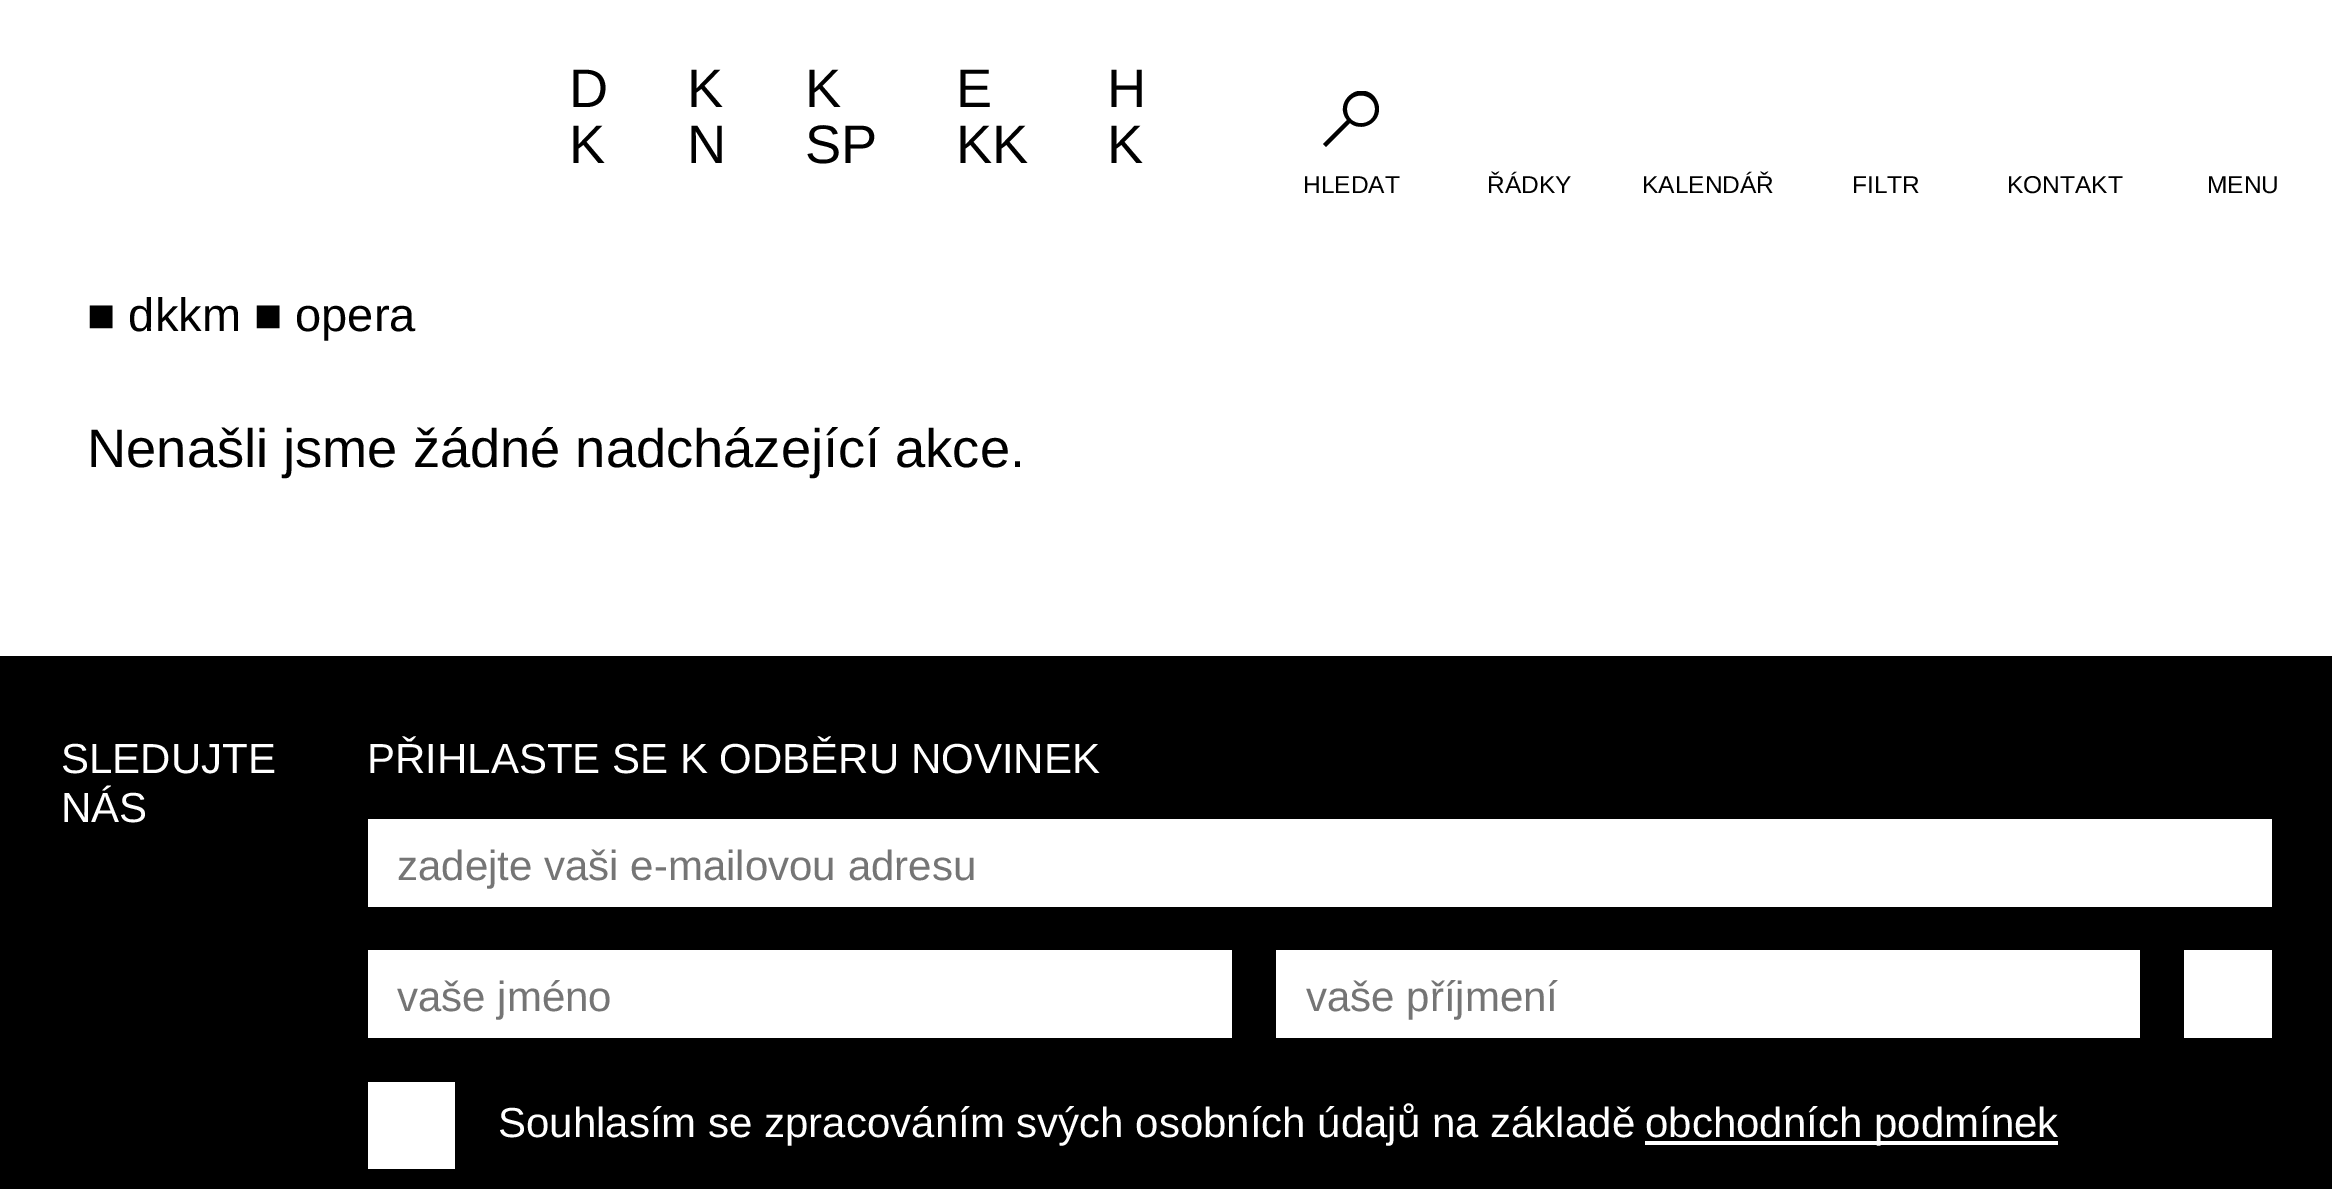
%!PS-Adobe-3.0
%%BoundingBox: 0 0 2332 1189
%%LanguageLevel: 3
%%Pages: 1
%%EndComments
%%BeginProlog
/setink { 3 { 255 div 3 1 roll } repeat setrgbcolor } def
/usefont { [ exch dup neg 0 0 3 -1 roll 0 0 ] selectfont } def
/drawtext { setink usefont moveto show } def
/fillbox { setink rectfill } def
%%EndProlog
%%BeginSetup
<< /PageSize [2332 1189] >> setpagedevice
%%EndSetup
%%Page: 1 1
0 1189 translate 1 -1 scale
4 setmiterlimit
0 0 2332 1189 255 255 255 fillbox
(D) 569 107 /LiberationSans-Regular 54.25 0 0 0 drawtext
(K) 569 163 /LiberationSans-Regular 54.25 0 0 0 drawtext
(K) 687 107 /LiberationSans-Regular 54.25 0 0 0 drawtext
(N) 687 163 /LiberationSans-Regular 54.25 0 0 0 drawtext
(K) 805 107 /LiberationSans-Regular 54.25 0 0 0 drawtext
(SP) 805 163 /LiberationSans-Regular 54.25 0 0 0 drawtext
(E) 956 107 /LiberationSans-Regular 54.25 0 0 0 drawtext
(KK) 956 163 /LiberationSans-Regular 54.25 0 0 0 drawtext
(H) 1107 107 /LiberationSans-Regular 54.25 0 0 0 drawtext
(K) 1107 163 /LiberationSans-Regular 54.25 0 0 0 drawtext
gsave
1323 91 56 56 rectclip
1375 109 moveto 1375 128 1347 128 1347 109 curveto 1347 91 1375 91 1375 109 curveto 1379 109 moveto 1379 104 1377 100 1374 96 curveto 1358 80 1333 103 1347 120 curveto 1323 144 lineto 1326 147 lineto 1350 123 lineto 1361 132 1379 124 1379 109 curveto fill
grestore
(HLEDAT) 1303 193 /LiberationSans-Regular 24.5 0 0 0 drawtext
(ŘÁDKY) 1487 193 /LiberationSans-Regular 24.5 0 0 0 drawtext
(KALENDÁŘ) 1642 193 /LiberationSans-Regular 24.5 0 0 0 drawtext
(FILTR) 1852 193 /LiberationSans-Regular 24.5 0 0 0 drawtext
(KONTAKT) 2007 193 /LiberationSans-Regular 24.5 0 0 0 drawtext
(MENU) 2207 193 /LiberationSans-Regular 24.5 0 0 0 drawtext
(■ dkkm ■ opera) 87 331 /LiberationSans-Regular 47 0 0 0 drawtext
(Nenašli jsme žádné nadcházející akce.) 87 467 /LiberationSans-Regular 54.25 0 0 0 drawtext
0 656 2332 533 0 0 0 fillbox
(SLEDUJTE) 61 773 /LiberationSans-Regular 42 255 255 255 drawtext
(NÁS) 61 822 /LiberationSans-Regular 42 255 255 255 drawtext
(PŘIHLASTE SE K ODBĚRU NOVINEK) 367 773 /LiberationSans-Regular 42 255 255 255 drawtext
368 819 1904 88 255 255 255 fillbox
(zadejte vaši e-mailovou adresu) 397 880 /LiberationSans-Regular 42 117 117 117 drawtext
368 950 864 88 255 255 255 fillbox
(vaše jméno) 397 1011 /LiberationSans-Regular 42 117 117 117 drawtext
1276 950 864 88 255 255 255 fillbox
(vaše příjmení) 1306 1011 /LiberationSans-Regular 42 117 117 117 drawtext
2184 950 88 88 255 255 255 fillbox
368 1082 87 87 255 255 255 fillbox
(Souhlasím se zpracováním svých osobních údajů na základě) 498 1137 /LiberationSans-Regular 42 255 255 255 drawtext
1645 1141 413 4 255 255 255 fillbox
(obchodních podmínek) 1645 1137 /LiberationSans-Regular 42 255 255 255 drawtext
showpage
%%EOF
